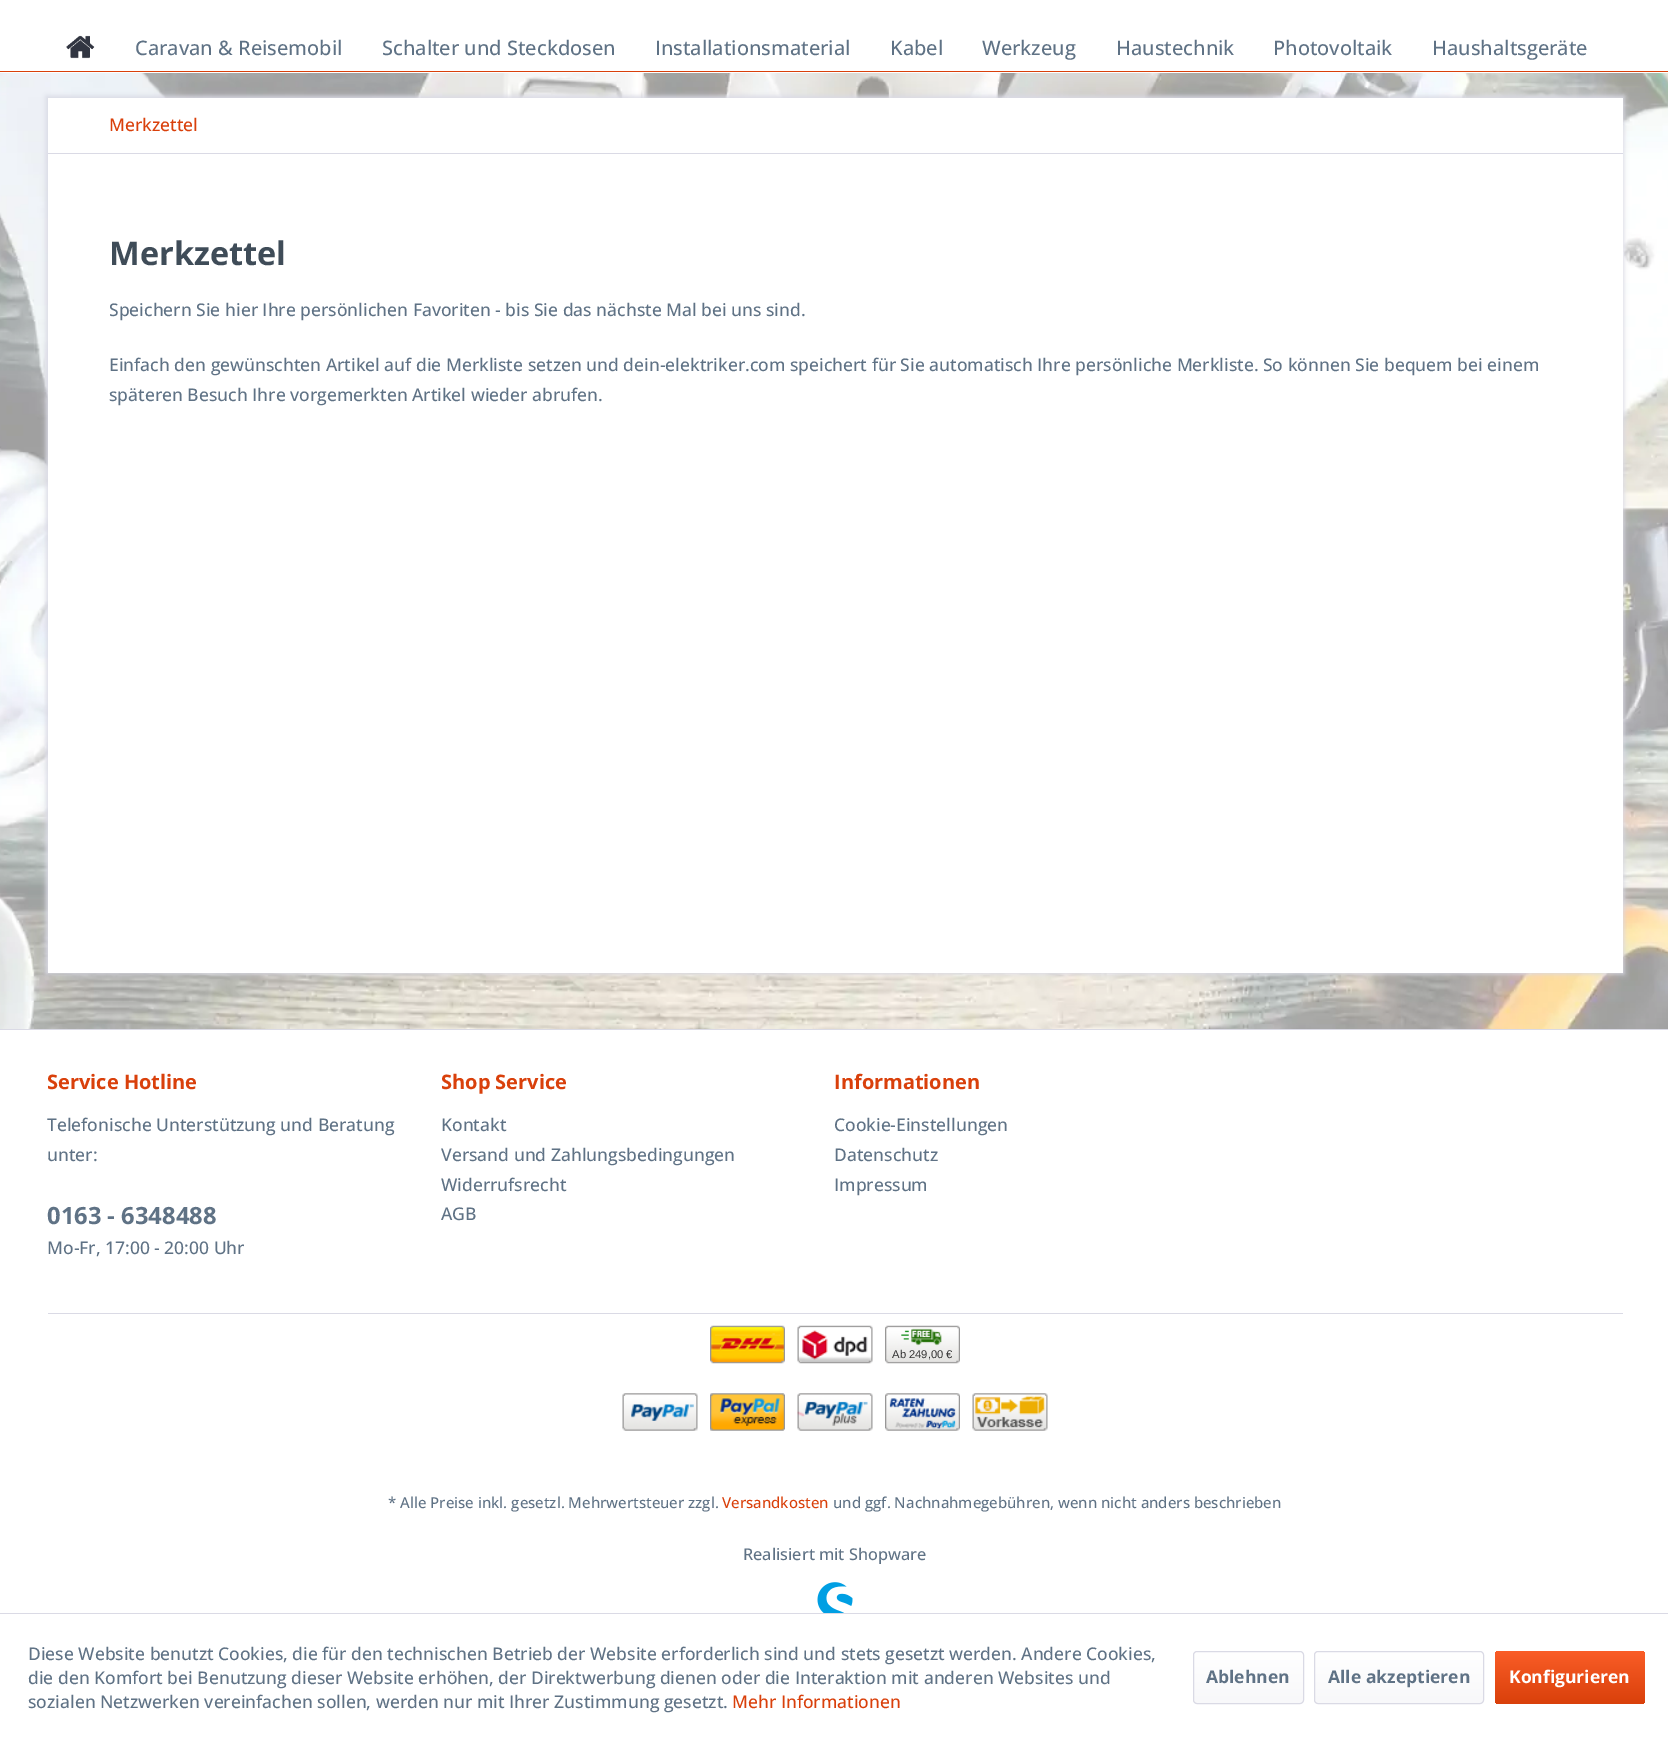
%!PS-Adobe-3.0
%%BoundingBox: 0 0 1668 1740
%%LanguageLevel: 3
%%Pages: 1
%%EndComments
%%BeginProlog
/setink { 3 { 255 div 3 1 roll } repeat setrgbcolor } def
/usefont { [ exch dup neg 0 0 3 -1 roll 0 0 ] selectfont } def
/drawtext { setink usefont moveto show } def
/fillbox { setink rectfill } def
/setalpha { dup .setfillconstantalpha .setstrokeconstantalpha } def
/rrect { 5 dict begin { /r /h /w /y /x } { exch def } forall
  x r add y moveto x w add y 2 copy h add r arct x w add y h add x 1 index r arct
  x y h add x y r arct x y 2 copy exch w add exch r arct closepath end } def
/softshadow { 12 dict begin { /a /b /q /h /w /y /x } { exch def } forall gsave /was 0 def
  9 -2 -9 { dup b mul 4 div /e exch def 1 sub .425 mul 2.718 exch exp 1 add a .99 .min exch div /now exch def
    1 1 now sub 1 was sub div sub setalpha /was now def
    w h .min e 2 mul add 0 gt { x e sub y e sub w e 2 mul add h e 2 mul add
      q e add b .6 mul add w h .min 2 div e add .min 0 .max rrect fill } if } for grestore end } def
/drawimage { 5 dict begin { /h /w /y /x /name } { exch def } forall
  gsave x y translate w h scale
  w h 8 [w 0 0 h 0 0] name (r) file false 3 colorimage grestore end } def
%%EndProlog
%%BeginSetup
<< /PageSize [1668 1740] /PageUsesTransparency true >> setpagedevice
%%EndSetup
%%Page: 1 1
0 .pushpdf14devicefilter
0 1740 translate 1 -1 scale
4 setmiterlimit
0 0 1668 1740 255 255 255 fillbox
(assets/img1.rgb) 0 73 1668 956 drawimage
0 71 1668 1 217 64 11 fillbox
(assets/img2.rgb) 66 35 29 24 drawimage
(Caravan & Reisemobil) 135 55 /OpenSans-Medium 20 95 114 133 drawtext
(Schalter und Steckdosen) 382 55 /OpenSans-Medium 20 95 114 133 drawtext
(Installationsmaterial) 655 55 /OpenSans-Medium 20 95 114 133 drawtext
(Kabel) 890 55 /OpenSans-Medium 20 95 114 133 drawtext
(Werkzeug) 982 55 /OpenSans-Medium 20 95 114 133 drawtext
(Haustechnik) 1116 55 /OpenSans-Medium 20 95 114 133 drawtext
(Photovoltaik) 1273 55 /OpenSans-Medium 20 95 114 133 drawtext
(Haushaltsgeräte) 1432 55 /OpenSans-Medium 20 95 114 133 drawtext
218 218 229 setink
46 96 1578 878 0 2.5 1 softshadow
48 98 1575 875 255 255 255 fillbox
48 153 1575 1 218 218 229 fillbox
(Merkzettel) 109 131 /OpenSans-Medium 17.5 217 64 11 drawtext
(Merkzettel) 109 265 /OpenSans-Bold 32.5 63 76 88 drawtext
(Speichern Sie hier Ihre persönlichen Favoriten - bis Sie das nächste Mal bei uns sind.) 109 316 /OpenSans-Medium 17.5 95 114 133 drawtext
(Einfach den gewünschten Artikel auf die Merkliste setzen und dein-elektriker.com speichert für Sie automatisch Ihre persönliche Merkliste. So können Sie bequem bei einem) 109 371 /OpenSans-Medium 17.5 95 114 133 drawtext
(späteren Besuch Ihre vorgemerkten Artikel wieder abrufen.) 109 401 /OpenSans-Medium 17.5 95 114 133 drawtext
0 1029 1668 1 218 218 229 fillbox
48 1313 1575 1 218 218 229 fillbox
(Service Hotline) 47 1089 /OpenSans-Bold 20 217 64 11 drawtext
(Telefonische Unterstützung und Beratung) 47 1131 /OpenSans-Medium 17.5 95 114 133 drawtext
(unter:) 47 1161 /OpenSans-Medium 17.5 95 114 133 drawtext
(0163 - 6348488) 47 1224 /OpenSans-Bold 23.75 95 114 133 drawtext
(Mo-Fr, 17:00 - 20:00 Uhr) 47 1254 /OpenSans-Medium 17.5 95 114 133 drawtext
(Shop Service) 441 1089 /OpenSans-Bold 20 217 64 11 drawtext
(Kontakt) 441 1131 /OpenSans-Medium 17.5 95 114 133 drawtext
(Versand und Zahlungsbedingungen) 441 1161 /OpenSans-Medium 17.5 95 114 133 drawtext
(Widerrufsrecht) 441 1191 /OpenSans-Medium 17.5 95 114 133 drawtext
(AGB) 441 1220 /OpenSans-Medium 17.5 95 114 133 drawtext
(Informationen) 834 1089 /OpenSans-Bold 20 217 64 11 drawtext
(Cookie-Einstellungen) 834 1131 /OpenSans-Medium 17.5 95 114 133 drawtext
(Datenschutz) 834 1161 /OpenSans-Medium 17.5 95 114 133 drawtext
(Impressum) 834 1191 /OpenSans-Medium 17.5 95 114 133 drawtext
(assets/img3.rgb) 710 1325 75 39 drawimage
(assets/img4.rgb) 797 1325 76 39 drawimage
(assets/img5.rgb) 885 1325 75 39 drawimage
(Ab 249,00 €) 892 1358 /LiberationSans-Regular 11.25 51 51 51 drawtext
(assets/img6.rgb) 622 1393 76 38 drawimage
(assets/img7.rgb) 710 1393 75 38 drawimage
(assets/img8.rgb) 797 1393 76 38 drawimage
(assets/img9.rgb) 885 1393 75 38 drawimage
(assets/img10.rgb) 972 1393 76 38 drawimage
(* Alle Preise inkl. gesetzl. Mehrwertsteuer zzgl.) 388 1508 /OpenSans-Medium 15 95 114 133 drawtext
(Versandkosten) 722 1508 /OpenSans-Medium 15 217 64 11 drawtext
(und ggf. Nachnahmegebühren, wenn nicht anders beschrieben) 833 1508 /OpenSans-Medium 15 95 114 133 drawtext
(Realisiert mit Shopware) 743 1560 /OpenSans-Medium 16.25 95 114 133 drawtext
(assets/img11.rgb) 817 1582 36 31 drawimage
0 1613 1668 1 218 218 229 fillbox
(Diese Website benutzt Cookies, die für den technischen Betrieb der Website erforderlich sind und stets gesetzt werden. Andere Cookies,) 28 1660 /OpenSans-Medium 17.5 95 114 133 drawtext
(die den Komfort bei Benutzung dieser Website erhöhen, der Direktwerbung dienen oder die Interaktion mit anderen Websites und) 28 1684 /OpenSans-Medium 17.5 95 114 133 drawtext
(sozialen Netzwerken vereinfachen sollen, werden nur mit Ihrer Zustimmung gesetzt.) 28 1708 /OpenSans-Medium 17.5 95 114 133 drawtext
(Mehr Informationen) 732 1708 /OpenSans-Medium 17.5 217 64 11 drawtext
gsave 1194 1653 109 50 2.5 rrect clip newpath
<< /ShadingType 2 /ColorSpace /DeviceRGB /Coords [1248 1653 1248 1703] /Extend [true true] /Function << /FunctionType 2 /Domain [0 1] /C0 [1 1 1] /C1 [0.973 0.973 0.98] /N 1 >> >> shfill grestore
218 218 229 setink
1193.5 1651.5 110 52 3.5 rrect stroke
(Ablehnen) 1206 1683 /OpenSans-Bold 17.5 95 114 133 drawtext
gsave 1315 1653 168 50 2.5 rrect clip newpath
<< /ShadingType 2 /ColorSpace /DeviceRGB /Coords [1399 1653 1399 1703] /Extend [true true] /Function << /FunctionType 2 /Domain [0 1] /C0 [1 1 1] /C1 [0.973 0.973 0.98] /N 1 >> >> shfill grestore
218 218 229 setink
1314.5 1651.5 169 52 3.5 rrect stroke
(Alle akzeptieren) 1328 1683 /OpenSans-Bold 17.5 95 114 133 drawtext
gsave 1495 1651 150 53 4 rrect clip newpath
<< /ShadingType 2 /ColorSpace /DeviceRGB /Coords [1570 1651 1570 1704] /Extend [true true] /Function << /FunctionType 2 /Domain [0 1] /C0 [0.98 0.365 0.153] /C1 [0.851 0.251 0.043] /N 1 >> >> shfill grestore
(Konfigurieren) 1509 1683 /OpenSans-Bold 17.5 255 255 255 drawtext
.poppdf14devicefilter showpage
%%EOF
